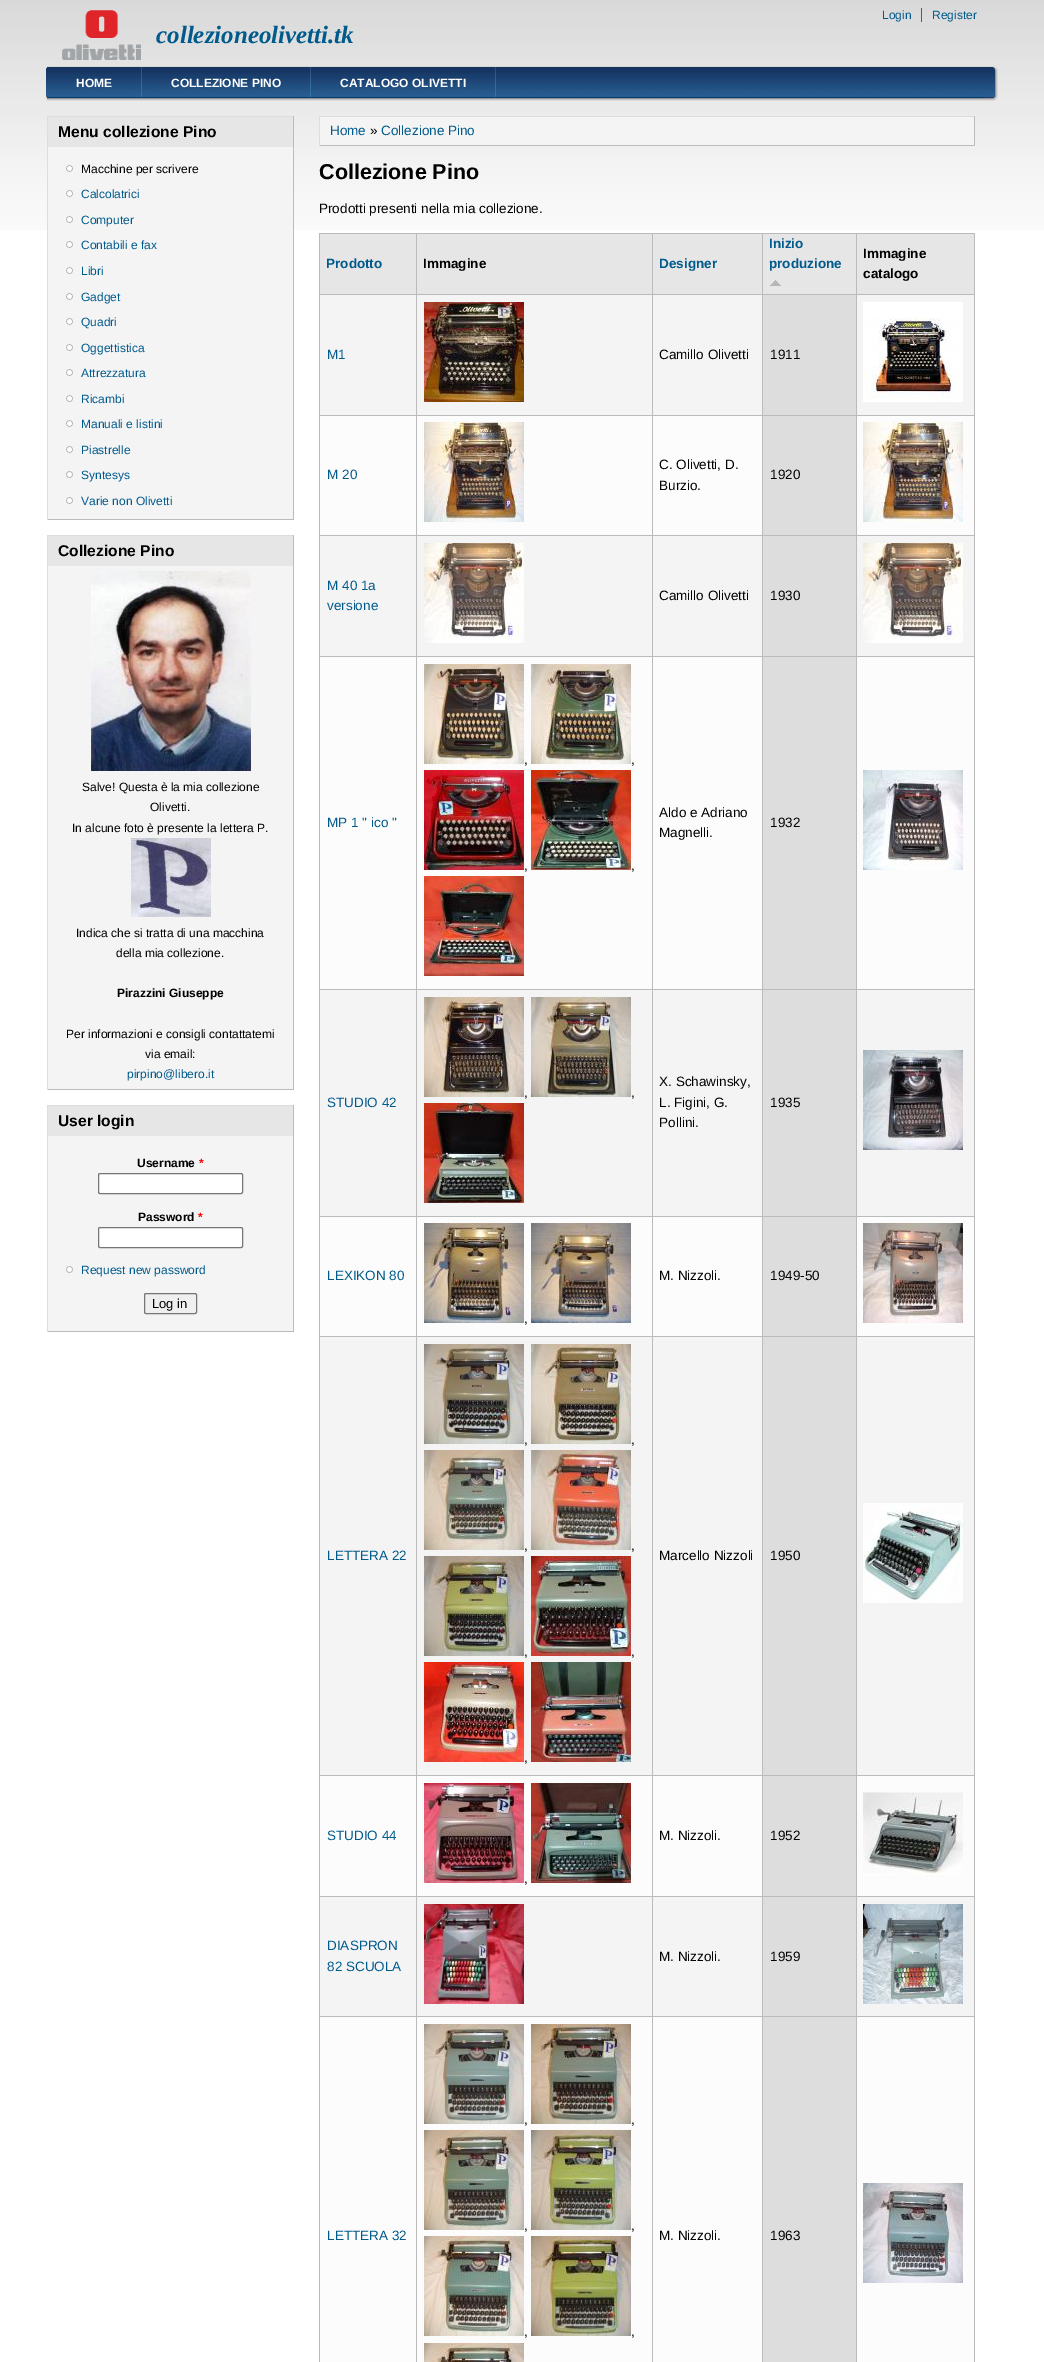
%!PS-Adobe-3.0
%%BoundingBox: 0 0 1044 2362
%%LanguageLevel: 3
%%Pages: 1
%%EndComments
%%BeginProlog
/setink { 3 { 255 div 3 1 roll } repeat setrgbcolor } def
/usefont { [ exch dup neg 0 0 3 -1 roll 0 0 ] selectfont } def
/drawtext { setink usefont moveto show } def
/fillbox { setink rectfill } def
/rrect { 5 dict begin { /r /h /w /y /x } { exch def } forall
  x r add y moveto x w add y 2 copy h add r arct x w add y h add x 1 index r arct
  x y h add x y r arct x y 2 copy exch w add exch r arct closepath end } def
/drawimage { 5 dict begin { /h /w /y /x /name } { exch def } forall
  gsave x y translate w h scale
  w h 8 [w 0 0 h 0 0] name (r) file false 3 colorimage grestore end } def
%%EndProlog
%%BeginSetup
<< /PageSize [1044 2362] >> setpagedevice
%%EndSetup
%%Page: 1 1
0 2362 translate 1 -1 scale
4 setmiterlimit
0 0 1044 2362 255 255 255 fillbox
(assets/img1.rgb) 0 0 1044 230 drawimage
(assets/img2.rgb) 62 10 79 50 drawimage
(Login) 882 19 /LiberationSans-Regular 12 0 90 140 drawtext
921 8 1 14 90 90 90 fillbox
(Register) 932 19 /LiberationSans-Regular 12 0 90 140 drawtext
(collezioneolivetti.tk) 156 43 /LiberationSerif-BoldItalic 25 0 90 140 drawtext
(assets/img3.rgb) 47 66 937 35 drawimage
(assets/img4.rgb) 46 66 1 35 drawimage
(assets/img5.rgb) 141 67 1 31 drawimage
(HOME) 76 87 /LiberationSans-Bold 12 255 255 255 drawtext
(assets/img5.rgb) 310 67 1 31 drawimage
(COLLEZIONE PINO) 171 87 /LiberationSans-Bold 12 255 255 255 drawtext
(assets/img5.rgb) 495 67 1 31 drawimage
(CATALOGO OLIVETTI) 340 87 /LiberationSans-Bold 12 255 255 255 drawtext
(assets/img6.rgb) 984 66 14 35 drawimage
48 147 245 372 244 244 244 fillbox
47 116 247 1 221 221 221 fillbox
293 116 1 404 187 187 187 fillbox
47 519 247 1 187 187 187 fillbox
47 116 1 404 221 221 221 fillbox
48 117 245 30 230 230 230 fillbox
(Menu collezione Pino) 58 137 /LiberationSans-Bold 15.6 0 0 0 drawtext
(assets/img7.rgb) 66 165 7 7 drawimage
(Macchine per scrivere) 81 173 /LiberationSans-Regular 12 0 0 0 drawtext
(assets/img7.rgb) 66 190 7 7 drawimage
(Calcolatrici) 81 198 /LiberationSans-Regular 12 0 90 140 drawtext
(assets/img7.rgb) 66 216 7 7 drawimage
(Computer) 81 224 /LiberationSans-Regular 12 0 90 140 drawtext
(assets/img7.rgb) 66 241 7 7 drawimage
(Contabili e fax) 81 249 /LiberationSans-Regular 12 0 90 140 drawtext
(assets/img7.rgb) 66 267 7 7 drawimage
(Libri) 81 275 /LiberationSans-Regular 12 0 90 140 drawtext
(assets/img7.rgb) 66 293 7 7 drawimage
(Gadget) 81 301 /LiberationSans-Regular 12 0 90 140 drawtext
(assets/img7.rgb) 66 318 7 7 drawimage
(Quadri) 81 326 /LiberationSans-Regular 12 0 90 140 drawtext
(assets/img7.rgb) 66 344 7 7 drawimage
(Oggettistica) 81 352 /LiberationSans-Regular 12 0 90 140 drawtext
(assets/img7.rgb) 66 369 7 7 drawimage
(Attrezzatura) 81 377 /LiberationSans-Regular 12 0 90 140 drawtext
(assets/img7.rgb) 66 395 7 7 drawimage
(Ricambi) 81 403 /LiberationSans-Regular 12 0 90 140 drawtext
(assets/img7.rgb) 66 420 7 7 drawimage
(Manuali e listini) 81 428 /LiberationSans-Regular 12 0 90 140 drawtext
(assets/img7.rgb) 66 446 7 7 drawimage
(Piastrelle) 81 454 /LiberationSans-Regular 12 0 90 140 drawtext
(assets/img7.rgb) 66 471 7 7 drawimage
(Syntesys) 81 479 /LiberationSans-Regular 12 0 90 140 drawtext
(assets/img7.rgb) 66 497 7 7 drawimage
(Varie non Olivetti) 81 505 /LiberationSans-Regular 12 0 90 140 drawtext
48 566 245 523 244 244 244 fillbox
47 535 247 1 221 221 221 fillbox
293 535 1 555 187 187 187 fillbox
47 1089 247 1 187 187 187 fillbox
47 535 1 555 221 221 221 fillbox
48 536 245 30 230 230 230 fillbox
(Collezione Pino) 58 556 /LiberationSans-Bold 15.6 0 0 0 drawtext
(assets/img8.rgb) 91 571 160 200 drawimage
(Salve! Questa è la mia collezione) 82 791 /LiberationSans-Regular 12 0 0 0 drawtext
(Olivetti.) 150 811 /LiberationSans-Regular 12 0 0 0 drawtext
(In alcune foto è presente la lettera P.) 72 832 /LiberationSans-Regular 12 0 0 0 drawtext
(assets/img9.rgb) 131 838 80 79 drawimage
(Indica che si tratta di una macchina) 76 937 /LiberationSans-Regular 12 0 0 0 drawtext
(della mia collezione.) 116 957 /LiberationSans-Regular 12 0 0 0 drawtext
(Pirazzini Giuseppe) 117 997 /LiberationSans-Bold 12 0 0 0 drawtext
(Per informazioni e consigli contattatemi) 66 1038 /LiberationSans-Regular 12 0 0 0 drawtext
(via email:) 145 1058 /LiberationSans-Regular 12 0 0 0 drawtext
(pirpino@libero.it) 127 1078 /LiberationSans-Regular 12 0 90 140 drawtext
48 1136 245 195 244 244 244 fillbox
47 1105 247 1 221 221 221 fillbox
293 1105 1 227 187 187 187 fillbox
47 1331 247 1 187 187 187 fillbox
47 1105 1 227 221 221 221 fillbox
48 1106 245 30 230 230 230 fillbox
(User login) 58 1126 /LiberationSans-Bold 15.6 0 0 0 drawtext
(Username) 137 1167 /LiberationSans-Bold 12 0 0 0 drawtext
(*) 199 1167 /LiberationSans-Bold 12 255 0 0 drawtext
255 255 255 setink
98.5 1173.5 144 20 1.5 rrect gsave fill grestore
118 118 118 setink
stroke
(Password) 138 1221 /LiberationSans-Bold 12 0 0 0 drawtext
(*) 198 1221 /LiberationSans-Bold 12 255 0 0 drawtext
255 255 255 setink
98.5 1227.5 144 20 1.5 rrect gsave fill grestore
118 118 118 setink
stroke
(assets/img7.rgb) 66 1266 7 7 drawimage
(Request new password) 81 1274 /LiberationSans-Regular 12 0 90 140 drawtext
239 239 239 setink
144.5 1293.5 52 20 1.5 rrect gsave fill grestore
118 118 118 setink
stroke
(Log in) 152 1308 /LiberationSans-Regular 13 0 0 0 drawtext
320 117 654 28 244 244 244 fillbox
319 116 656 1 221 221 221 fillbox
974 116 1 30 187 187 187 fillbox
319 145 656 1 187 187 187 fillbox
319 116 1 30 221 221 221 fillbox
(Home) 330 135 /LiberationSans-Regular 13.5 0 90 140 drawtext
(») 370 135 /LiberationSans-Regular 13.5 0 0 0 drawtext
(Collezione Pino) 381 135 /LiberationSans-Regular 13.5 0 90 140 drawtext
(Collezione Pino) 319 179 /LiberationSans-Bold 21.5 0 0 0 drawtext
(Prodotti presenti nella mia collezione.) 319 213 /LiberationSans-Regular 13.5 0 0 0 drawtext
320 234 96 60 230 230 230 fillbox
856 233 119 1 187 187 187 fillbox
856 294 119 1 187 187 187 fillbox
320 295 654 120 244 244 244 fillbox
856 415 119 1 187 187 187 fillbox
320 416 654 119 252 252 252 fillbox
856 535 119 1 187 187 187 fillbox
320 536 654 120 244 244 244 fillbox
856 656 119 1 187 187 187 fillbox
320 657 654 332 252 252 252 fillbox
856 989 119 1 187 187 187 fillbox
320 990 654 226 244 244 244 fillbox
856 1216 119 1 187 187 187 fillbox
320 1217 654 119 252 252 252 fillbox
856 1336 119 1 187 187 187 fillbox
320 1337 654 438 244 244 244 fillbox
856 1775 119 1 187 187 187 fillbox
320 1776 654 120 252 252 252 fillbox
856 1896 119 1 187 187 187 fillbox
320 1897 654 119 244 244 244 fillbox
856 2016 119 1 187 187 187 fillbox
320 2017 654 345 252 252 252 fillbox
856 2016 1 346 187 187 187 fillbox
762 2016 95 1 187 187 187 fillbox
856 1896 1 121 187 187 187 fillbox
762 1896 95 1 187 187 187 fillbox
856 1775 1 122 187 187 187 fillbox
762 1775 95 1 187 187 187 fillbox
856 1336 1 440 187 187 187 fillbox
762 1336 95 1 187 187 187 fillbox
856 1216 1 121 187 187 187 fillbox
762 1216 95 1 187 187 187 fillbox
856 989 1 228 187 187 187 fillbox
762 989 95 1 187 187 187 fillbox
856 656 1 334 187 187 187 fillbox
762 656 95 1 187 187 187 fillbox
856 535 1 122 187 187 187 fillbox
762 535 95 1 187 187 187 fillbox
856 415 1 121 187 187 187 fillbox
762 415 95 1 187 187 187 fillbox
856 294 1 122 187 187 187 fillbox
762 294 95 1 187 187 187 fillbox
856 233 1 62 187 187 187 fillbox
762 233 95 1 187 187 187 fillbox
762 2016 1 346 187 187 187 fillbox
652 2016 111 1 187 187 187 fillbox
762 1896 1 121 187 187 187 fillbox
652 1896 111 1 187 187 187 fillbox
762 1775 1 122 187 187 187 fillbox
652 1775 111 1 187 187 187 fillbox
762 1336 1 440 187 187 187 fillbox
652 1336 111 1 187 187 187 fillbox
762 1216 1 121 187 187 187 fillbox
652 1216 111 1 187 187 187 fillbox
762 989 1 228 187 187 187 fillbox
652 989 111 1 187 187 187 fillbox
762 656 1 334 187 187 187 fillbox
652 656 111 1 187 187 187 fillbox
762 535 1 122 187 187 187 fillbox
652 535 111 1 187 187 187 fillbox
762 415 1 121 187 187 187 fillbox
652 415 111 1 187 187 187 fillbox
762 294 1 122 187 187 187 fillbox
652 294 111 1 187 187 187 fillbox
762 233 1 62 187 187 187 fillbox
652 233 111 1 187 187 187 fillbox
652 2016 1 346 187 187 187 fillbox
416 2016 237 1 187 187 187 fillbox
652 1896 1 121 187 187 187 fillbox
416 1896 237 1 187 187 187 fillbox
652 1775 1 122 187 187 187 fillbox
416 1775 237 1 187 187 187 fillbox
652 1336 1 440 187 187 187 fillbox
416 1336 237 1 187 187 187 fillbox
652 1216 1 121 187 187 187 fillbox
416 1216 237 1 187 187 187 fillbox
652 989 1 228 187 187 187 fillbox
416 989 237 1 187 187 187 fillbox
652 656 1 334 187 187 187 fillbox
416 656 237 1 187 187 187 fillbox
652 535 1 122 187 187 187 fillbox
416 535 237 1 187 187 187 fillbox
652 415 1 121 187 187 187 fillbox
416 415 237 1 187 187 187 fillbox
652 294 1 122 187 187 187 fillbox
416 294 237 1 187 187 187 fillbox
652 233 1 62 187 187 187 fillbox
416 233 237 1 187 187 187 fillbox
416 2016 1 346 187 187 187 fillbox
319 2016 98 1 187 187 187 fillbox
416 1896 1 121 187 187 187 fillbox
319 1896 98 1 187 187 187 fillbox
416 1775 1 122 187 187 187 fillbox
319 1775 98 1 187 187 187 fillbox
416 1336 1 440 187 187 187 fillbox
319 1336 98 1 187 187 187 fillbox
416 1216 1 121 187 187 187 fillbox
319 1216 98 1 187 187 187 fillbox
416 989 1 228 187 187 187 fillbox
319 989 98 1 187 187 187 fillbox
416 656 1 334 187 187 187 fillbox
319 656 98 1 187 187 187 fillbox
416 535 1 122 187 187 187 fillbox
319 535 98 1 187 187 187 fillbox
416 415 1 121 187 187 187 fillbox
319 415 98 1 187 187 187 fillbox
416 294 1 122 187 187 187 fillbox
319 294 98 1 187 187 187 fillbox
416 233 1 62 187 187 187 fillbox
319 233 98 1 187 187 187 fillbox
319 2016 1 346 187 187 187 fillbox
319 1896 1 121 187 187 187 fillbox
319 1775 1 122 187 187 187 fillbox
319 1336 1 440 187 187 187 fillbox
319 1216 1 121 187 187 187 fillbox
319 989 1 228 187 187 187 fillbox
319 656 1 334 187 187 187 fillbox
319 535 1 122 187 187 187 fillbox
319 415 1 121 187 187 187 fillbox
319 294 1 122 187 187 187 fillbox
319 233 1 62 187 187 187 fillbox
(Prodotto) 326 268 /LiberationSans-Bold 13.5 0 90 140 drawtext
417 234 235 60 230 230 230 fillbox
(Immagine) 423 268 /LiberationSans-Bold 13.5 0 0 0 drawtext
653 234 109 60 230 230 230 fillbox
(Designer) 659 268 /LiberationSans-Bold 13.5 0 90 140 drawtext
763 234 93 60 230 230 230 fillbox
(Inizio) 769 248 /LiberationSans-Bold 13.5 0 90 140 drawtext
(produzione) 769 268 /LiberationSans-Bold 13.5 0 90 140 drawtext
(assets/img10.rgb) 770 280 11 6 drawimage
857 234 117 60 230 230 230 fillbox
974 2016 1 346 187 187 187 fillbox
974 1896 1 121 187 187 187 fillbox
974 1775 1 122 187 187 187 fillbox
974 1336 1 440 187 187 187 fillbox
974 1216 1 121 187 187 187 fillbox
974 989 1 228 187 187 187 fillbox
974 656 1 334 187 187 187 fillbox
974 535 1 122 187 187 187 fillbox
974 415 1 121 187 187 187 fillbox
974 294 1 122 187 187 187 fillbox
974 233 1 62 187 187 187 fillbox
(Immagine) 863 258 /LiberationSans-Bold 13.5 0 0 0 drawtext
(catalogo) 863 278 /LiberationSans-Bold 13.5 0 0 0 drawtext
(M1) 327 359 /LiberationSans-Regular 13.5 0 90 140 drawtext
(assets/img11.rgb) 424 302 100 100 drawimage
(Camillo Olivetti) 659 359 /LiberationSans-Regular 13.5 0 0 0 drawtext
763 295 93 120 221 221 221 fillbox
(1911) 770 359 /LiberationSans-Regular 13.5 0 0 0 drawtext
(assets/img12.rgb) 863 302 100 100 drawimage
(M 20) 327 479 /LiberationSans-Regular 13.5 0 90 140 drawtext
(assets/img13.rgb) 424 422 100 100 drawimage
(C. Olivetti, D.) 659 469 /LiberationSans-Regular 13.5 0 0 0 drawtext
(Burzio.) 659 490 /LiberationSans-Regular 13.5 0 0 0 drawtext
763 416 93 119 221 221 221 fillbox
(1920) 770 479 /LiberationSans-Regular 13.5 0 0 0 drawtext
(assets/img14.rgb) 863 422 100 100 drawimage
(M 40 1a) 327 590 /LiberationSans-Regular 13.5 0 90 140 drawtext
(versione) 327 610 /LiberationSans-Regular 13.5 0 90 140 drawtext
(assets/img15.rgb) 424 543 100 100 drawimage
(Camillo Olivetti) 659 600 /LiberationSans-Regular 13.5 0 0 0 drawtext
763 536 93 120 221 221 221 fillbox
(1930) 770 600 /LiberationSans-Regular 13.5 0 0 0 drawtext
(assets/img15.rgb) 863 543 100 100 drawimage
(MP 1 " ico ") 327 827 /LiberationSans-Regular 13.5 0 90 140 drawtext
(assets/img16.rgb) 424 664 100 100 drawimage
(,) 524 764 /LiberationSans-Regular 13.5 0 0 0 drawtext
(assets/img17.rgb) 531 664 100 100 drawimage
(,) 631 764 /LiberationSans-Regular 13.5 0 0 0 drawtext
(assets/img18.rgb) 424 770 100 100 drawimage
(,) 524 870 /LiberationSans-Regular 13.5 0 0 0 drawtext
(assets/img19.rgb) 531 770 100 100 drawimage
(,) 631 870 /LiberationSans-Regular 13.5 0 0 0 drawtext
(assets/img20.rgb) 424 876 100 100 drawimage
(Aldo e Adriano) 659 817 /LiberationSans-Regular 13.5 0 0 0 drawtext
(Magnelli.) 659 837 /LiberationSans-Regular 13.5 0 0 0 drawtext
763 657 93 332 221 221 221 fillbox
(1932) 770 827 /LiberationSans-Regular 13.5 0 0 0 drawtext
(assets/img21.rgb) 863 770 100 100 drawimage
(STUDIO 42) 327 1107 /LiberationSans-Regular 13.5 0 90 140 drawtext
(assets/img22.rgb) 424 997 100 100 drawimage
(,) 524 1097 /LiberationSans-Regular 13.5 0 0 0 drawtext
(assets/img23.rgb) 531 997 100 100 drawimage
(,) 631 1097 /LiberationSans-Regular 13.5 0 0 0 drawtext
(assets/img24.rgb) 424 1103 100 100 drawimage
(X. Schawinsky,) 659 1086 /LiberationSans-Regular 13.5 0 0 0 drawtext
(L. Figini, G.) 659 1107 /LiberationSans-Regular 13.5 0 0 0 drawtext
(Pollini.) 659 1127 /LiberationSans-Regular 13.5 0 0 0 drawtext
763 990 93 226 221 221 221 fillbox
(1935) 770 1107 /LiberationSans-Regular 13.5 0 0 0 drawtext
(assets/img25.rgb) 863 1050 100 100 drawimage
(LEXIKON 80) 327 1280 /LiberationSans-Regular 13.5 0 90 140 drawtext
(M. Nizzoli.) 659 1280 /LiberationSans-Regular 13.5 0 0 0 drawtext
763 1217 93 119 221 221 221 fillbox
(1949-50) 770 1280 /LiberationSans-Regular 13.5 0 0 0 drawtext
(assets/img26.rgb) 863 1223 100 100 drawimage
(assets/img27.rgb) 424 1223 100 100 drawimage
(,) 524 1323 /LiberationSans-Regular 13.5 0 0 0 drawtext
(assets/img28.rgb) 531 1223 100 100 drawimage
(LETTERA 22) 327 1560 /LiberationSans-Regular 13.5 0 90 140 drawtext
(assets/img29.rgb) 424 1344 100 100 drawimage
(,) 524 1444 /LiberationSans-Regular 13.5 0 0 0 drawtext
(assets/img30.rgb) 531 1344 100 100 drawimage
(,) 631 1444 /LiberationSans-Regular 13.5 0 0 0 drawtext
(assets/img31.rgb) 424 1450 100 100 drawimage
(,) 524 1550 /LiberationSans-Regular 13.5 0 0 0 drawtext
(assets/img32.rgb) 531 1450 100 100 drawimage
(,) 631 1550 /LiberationSans-Regular 13.5 0 0 0 drawtext
(assets/img33.rgb) 424 1556 100 100 drawimage
(,) 524 1656 /LiberationSans-Regular 13.5 0 0 0 drawtext
(assets/img34.rgb) 531 1556 100 100 drawimage
(,) 631 1656 /LiberationSans-Regular 13.5 0 0 0 drawtext
(assets/img35.rgb) 424 1662 100 100 drawimage
(,) 524 1762 /LiberationSans-Regular 13.5 0 0 0 drawtext
(assets/img36.rgb) 531 1662 100 100 drawimage
(Marcello Nizzoli) 659 1560 /LiberationSans-Regular 13.5 0 0 0 drawtext
763 1337 93 438 221 221 221 fillbox
(1950) 770 1560 /LiberationSans-Regular 13.5 0 0 0 drawtext
(assets/img37.rgb) 863 1503 100 100 drawimage
(STUDIO 44) 327 1840 /LiberationSans-Regular 13.5 0 90 140 drawtext
(M. Nizzoli.) 659 1840 /LiberationSans-Regular 13.5 0 0 0 drawtext
763 1776 93 120 221 221 221 fillbox
(1952) 770 1840 /LiberationSans-Regular 13.5 0 0 0 drawtext
(assets/img38.rgb) 863 1792 100 83 drawimage
(assets/img39.rgb) 424 1783 100 100 drawimage
(,) 524 1883 /LiberationSans-Regular 13.5 0 0 0 drawtext
(assets/img40.rgb) 531 1783 100 100 drawimage
(DIASPRON) 327 1950 /LiberationSans-Regular 13.5 0 90 140 drawtext
(82 SCUOLA) 327 1971 /LiberationSans-Regular 13.5 0 90 140 drawtext
(assets/img41.rgb) 424 1904 100 100 drawimage
(M. Nizzoli.) 659 1961 /LiberationSans-Regular 13.5 0 0 0 drawtext
763 1897 93 119 221 221 221 fillbox
(1959) 770 1961 /LiberationSans-Regular 13.5 0 0 0 drawtext
(assets/img42.rgb) 863 1904 100 100 drawimage
(LETTERA 32) 327 2240 /LiberationSans-Regular 13.5 0 90 140 drawtext
(assets/img43.rgb) 424 2024 100 100 drawimage
(,) 524 2124 /LiberationSans-Regular 13.5 0 0 0 drawtext
(assets/img44.rgb) 531 2024 100 100 drawimage
(,) 631 2124 /LiberationSans-Regular 13.5 0 0 0 drawtext
(assets/img45.rgb) 424 2130 100 100 drawimage
(,) 524 2230 /LiberationSans-Regular 13.5 0 0 0 drawtext
(assets/img46.rgb) 531 2130 100 100 drawimage
(,) 631 2230 /LiberationSans-Regular 13.5 0 0 0 drawtext
(assets/img47.rgb) 424 2236 100 100 drawimage
(,) 524 2336 /LiberationSans-Regular 13.5 0 0 0 drawtext
(assets/img48.rgb) 531 2236 100 100 drawimage
(,) 631 2336 /LiberationSans-Regular 13.5 0 0 0 drawtext
(assets/img49.rgb) 424 2343 100 19 drawimage
(M. Nizzoli.) 659 2240 /LiberationSans-Regular 13.5 0 0 0 drawtext
763 2017 93 345 221 221 221 fillbox
(1963) 770 2240 /LiberationSans-Regular 13.5 0 0 0 drawtext
(assets/img50.rgb) 863 2183 100 100 drawimage
showpage
%%EOF
